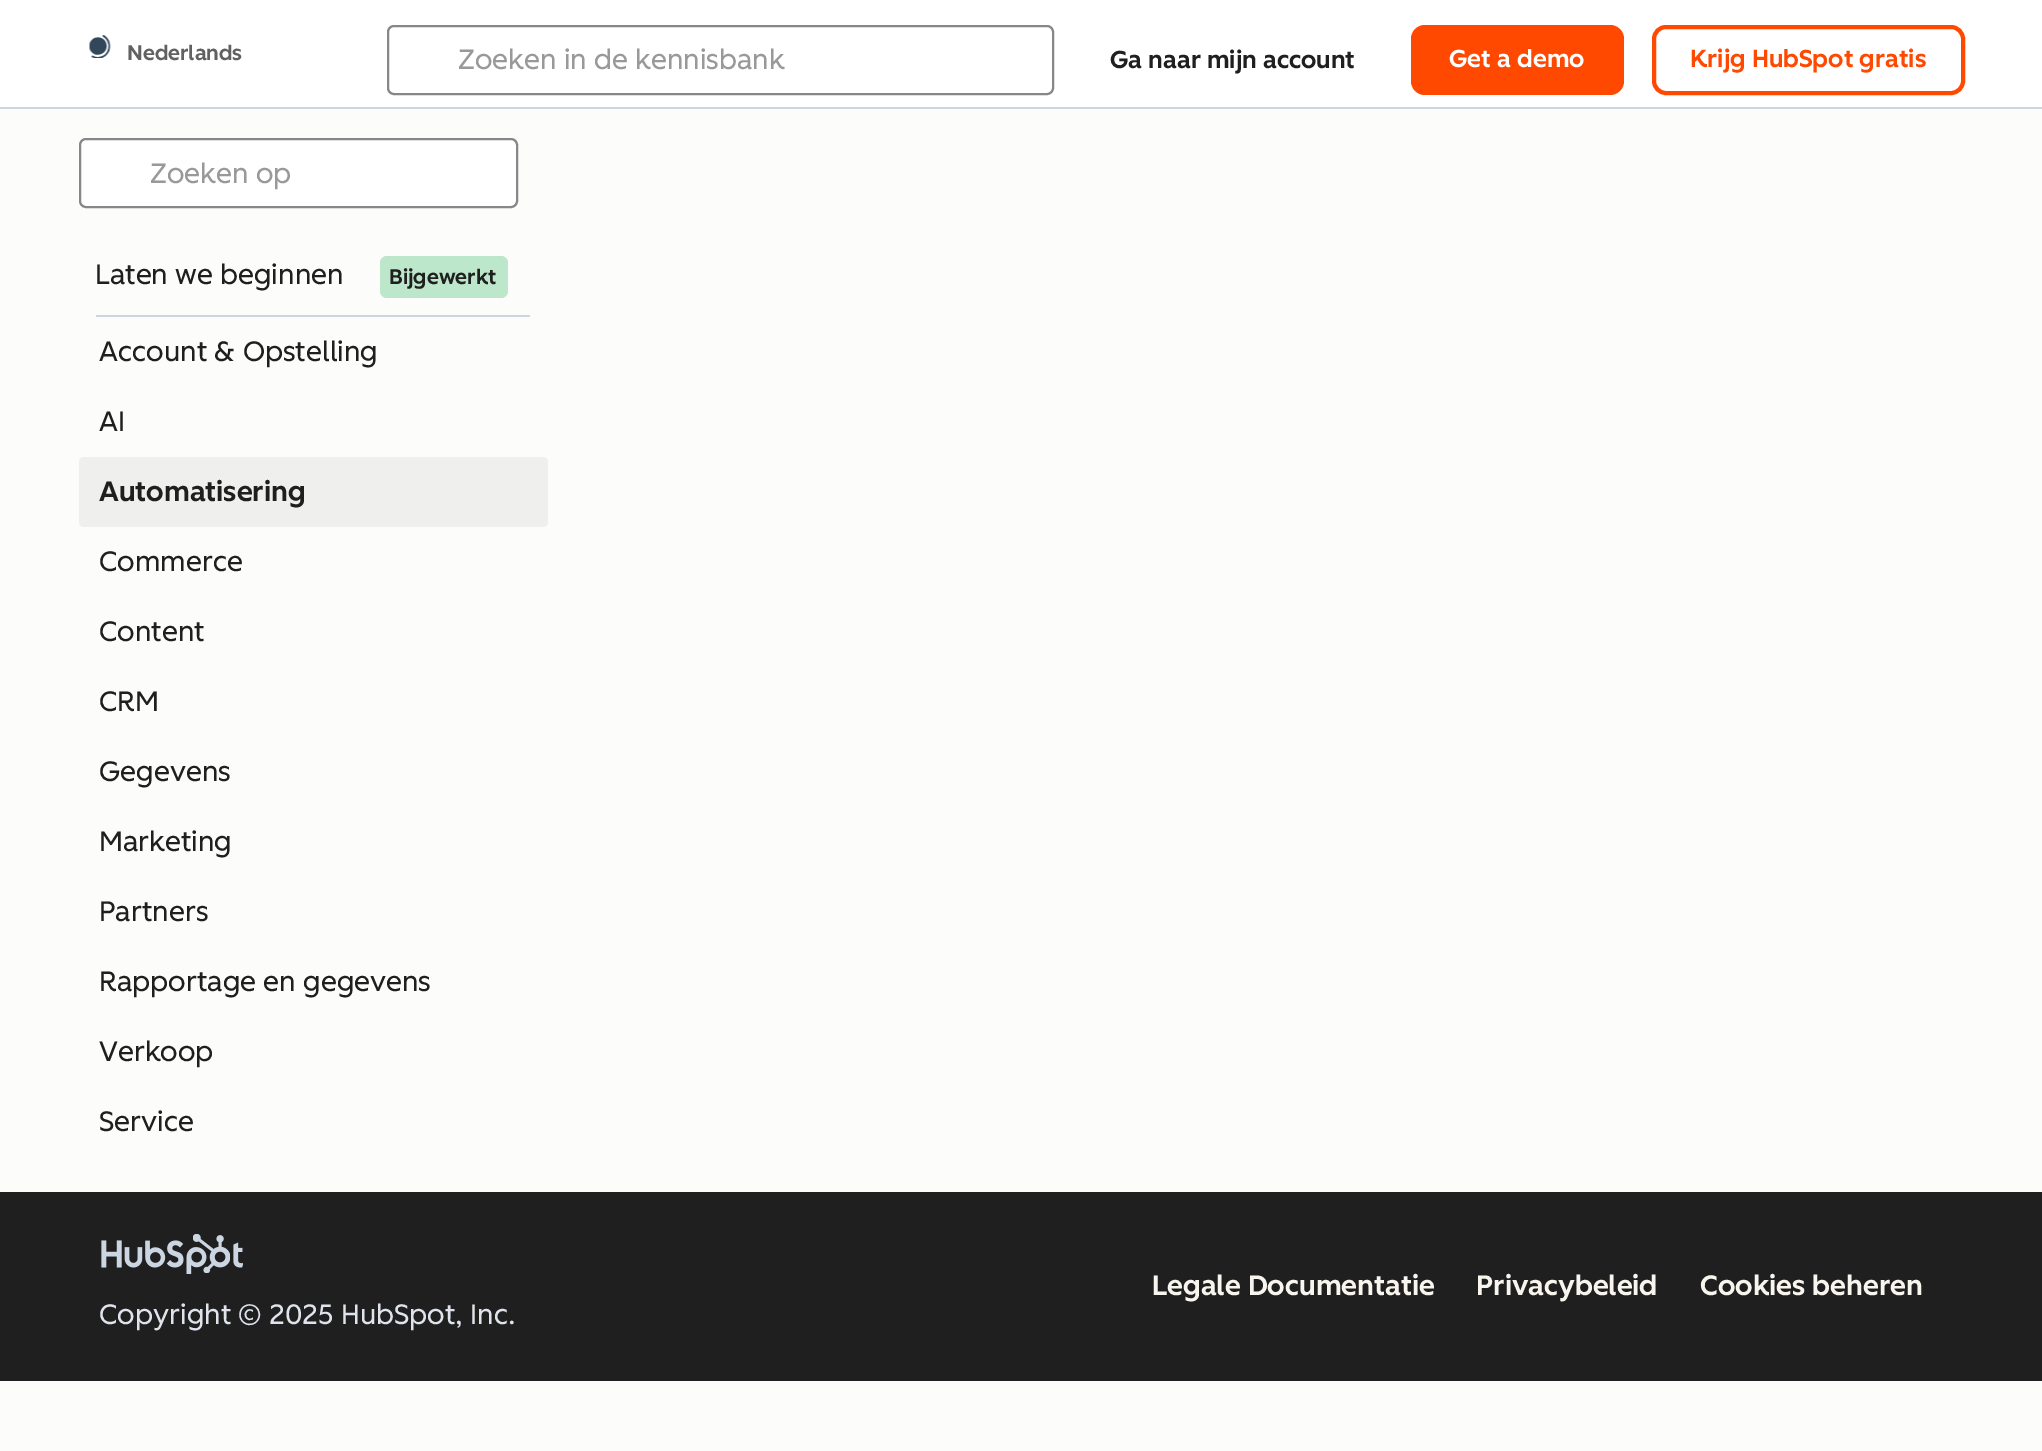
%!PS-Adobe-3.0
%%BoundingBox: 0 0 2042 1451
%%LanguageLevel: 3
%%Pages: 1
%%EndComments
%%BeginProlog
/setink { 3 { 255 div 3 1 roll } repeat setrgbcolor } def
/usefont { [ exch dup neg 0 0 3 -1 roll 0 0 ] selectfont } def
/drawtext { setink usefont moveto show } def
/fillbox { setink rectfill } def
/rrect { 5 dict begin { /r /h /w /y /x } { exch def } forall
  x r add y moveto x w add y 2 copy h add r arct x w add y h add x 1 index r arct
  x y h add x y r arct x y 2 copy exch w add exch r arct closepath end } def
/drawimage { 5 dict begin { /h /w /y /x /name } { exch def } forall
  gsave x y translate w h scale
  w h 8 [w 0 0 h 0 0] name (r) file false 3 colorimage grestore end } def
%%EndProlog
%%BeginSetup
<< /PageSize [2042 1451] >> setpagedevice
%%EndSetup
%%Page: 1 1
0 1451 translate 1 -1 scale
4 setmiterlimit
0 0 2042 1451 252 252 250 fillbox
0 0 2042 107 255 255 255 fillbox
0 107 2042 2 203 214 226 fillbox
(assets/img1.rgb) 89 35 22 23 drawimage
(Nederlands) 127 60 /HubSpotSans-Medium 21 97 97 97 drawtext
135 135 135 setink
2 setlinewidth
388 26 665 68 6 rrect stroke
gsave
459 44 565 33 rectclip
(Zoeken in de kennisbank) 458 69 /HubSpotSans-Regular 28 153 153 153 drawtext
grestore
(Ga naar mijn account) 1110 68 /HubSpotSans-Medium 24.5 31 31 31 drawtext
255 72 0 setink
1411 25 213 70 14 rrect fill
(Get a demo) 1449 67 /HubSpotSans-Medium 24.5 255 255 255 drawtext
255 72 0 setink
4 setlinewidth
1654 27 309 66 12 rrect stroke
(Krijg HubSpot gratis) 1690 67 /HubSpotSans-Medium 24.5 255 72 0 drawtext
255 255 255 setink
80 139 437 68 6 rrect gsave fill grestore
135 135 135 setink
2 setlinewidth
stroke
gsave
151 158 330 33 rectclip
(Zoeken op) 150 183 /HubSpotSans-Regular 28 153 153 153 drawtext
grestore
96 315 434 2 203 214 226 fillbox
(Laten we beginnen) 95 284 /HubSpotSans-Regular 28 31 31 31 drawtext
189 231 203 setink
380 256 128 42 7 rrect fill
(Bijgewerkt) 389 284 /HubSpotSans-Medium 21 31 31 31 drawtext
(Account & Opstelling) 99 361 /HubSpotSans-Regular 28 31 31 31 drawtext
(AI) 99 431 /HubSpotSans-Regular 28 31 31 31 drawtext
239 239 238 setink
79 457 469 70 5 rrect fill
(Automatisering) 99 501 /HubSpotSans-Medium 28 31 31 31 drawtext
(Commerce) 99 571 /HubSpotSans-Regular 28 31 31 31 drawtext
(Content) 99 641 /HubSpotSans-Regular 28 31 31 31 drawtext
(CRM) 99 711 /HubSpotSans-Regular 28 31 31 31 drawtext
(Gegevens) 99 781 /HubSpotSans-Regular 28 31 31 31 drawtext
(Marketing) 99 851 /HubSpotSans-Regular 28 31 31 31 drawtext
(Partners) 99 921 /HubSpotSans-Regular 28 31 31 31 drawtext
(Rapportage en gegevens) 99 991 /HubSpotSans-Regular 28 31 31 31 drawtext
(Verkoop) 99 1061 /HubSpotSans-Regular 28 31 31 31 drawtext
(Service) 99 1131 /HubSpotSans-Regular 28 31 31 31 drawtext
0 1192 2042 189 31 31 31 fillbox
(Legale Documentatie) 1152 1295 /HubSpotSans-Medium 28 248 245 238 drawtext
(Privacybeleid) 1476 1295 /HubSpotSans-Medium 28 248 245 238 drawtext
(Cookies beheren) 1700 1295 /HubSpotSans-Medium 28 248 245 238 drawtext
(assets/img2.rgb) 101 1234 142 40 drawimage
(Copyright © 2025 HubSpot, Inc.) 99 1324 /HubSpotSans-Regular 28 223 227 235 drawtext
showpage
%%EOF
